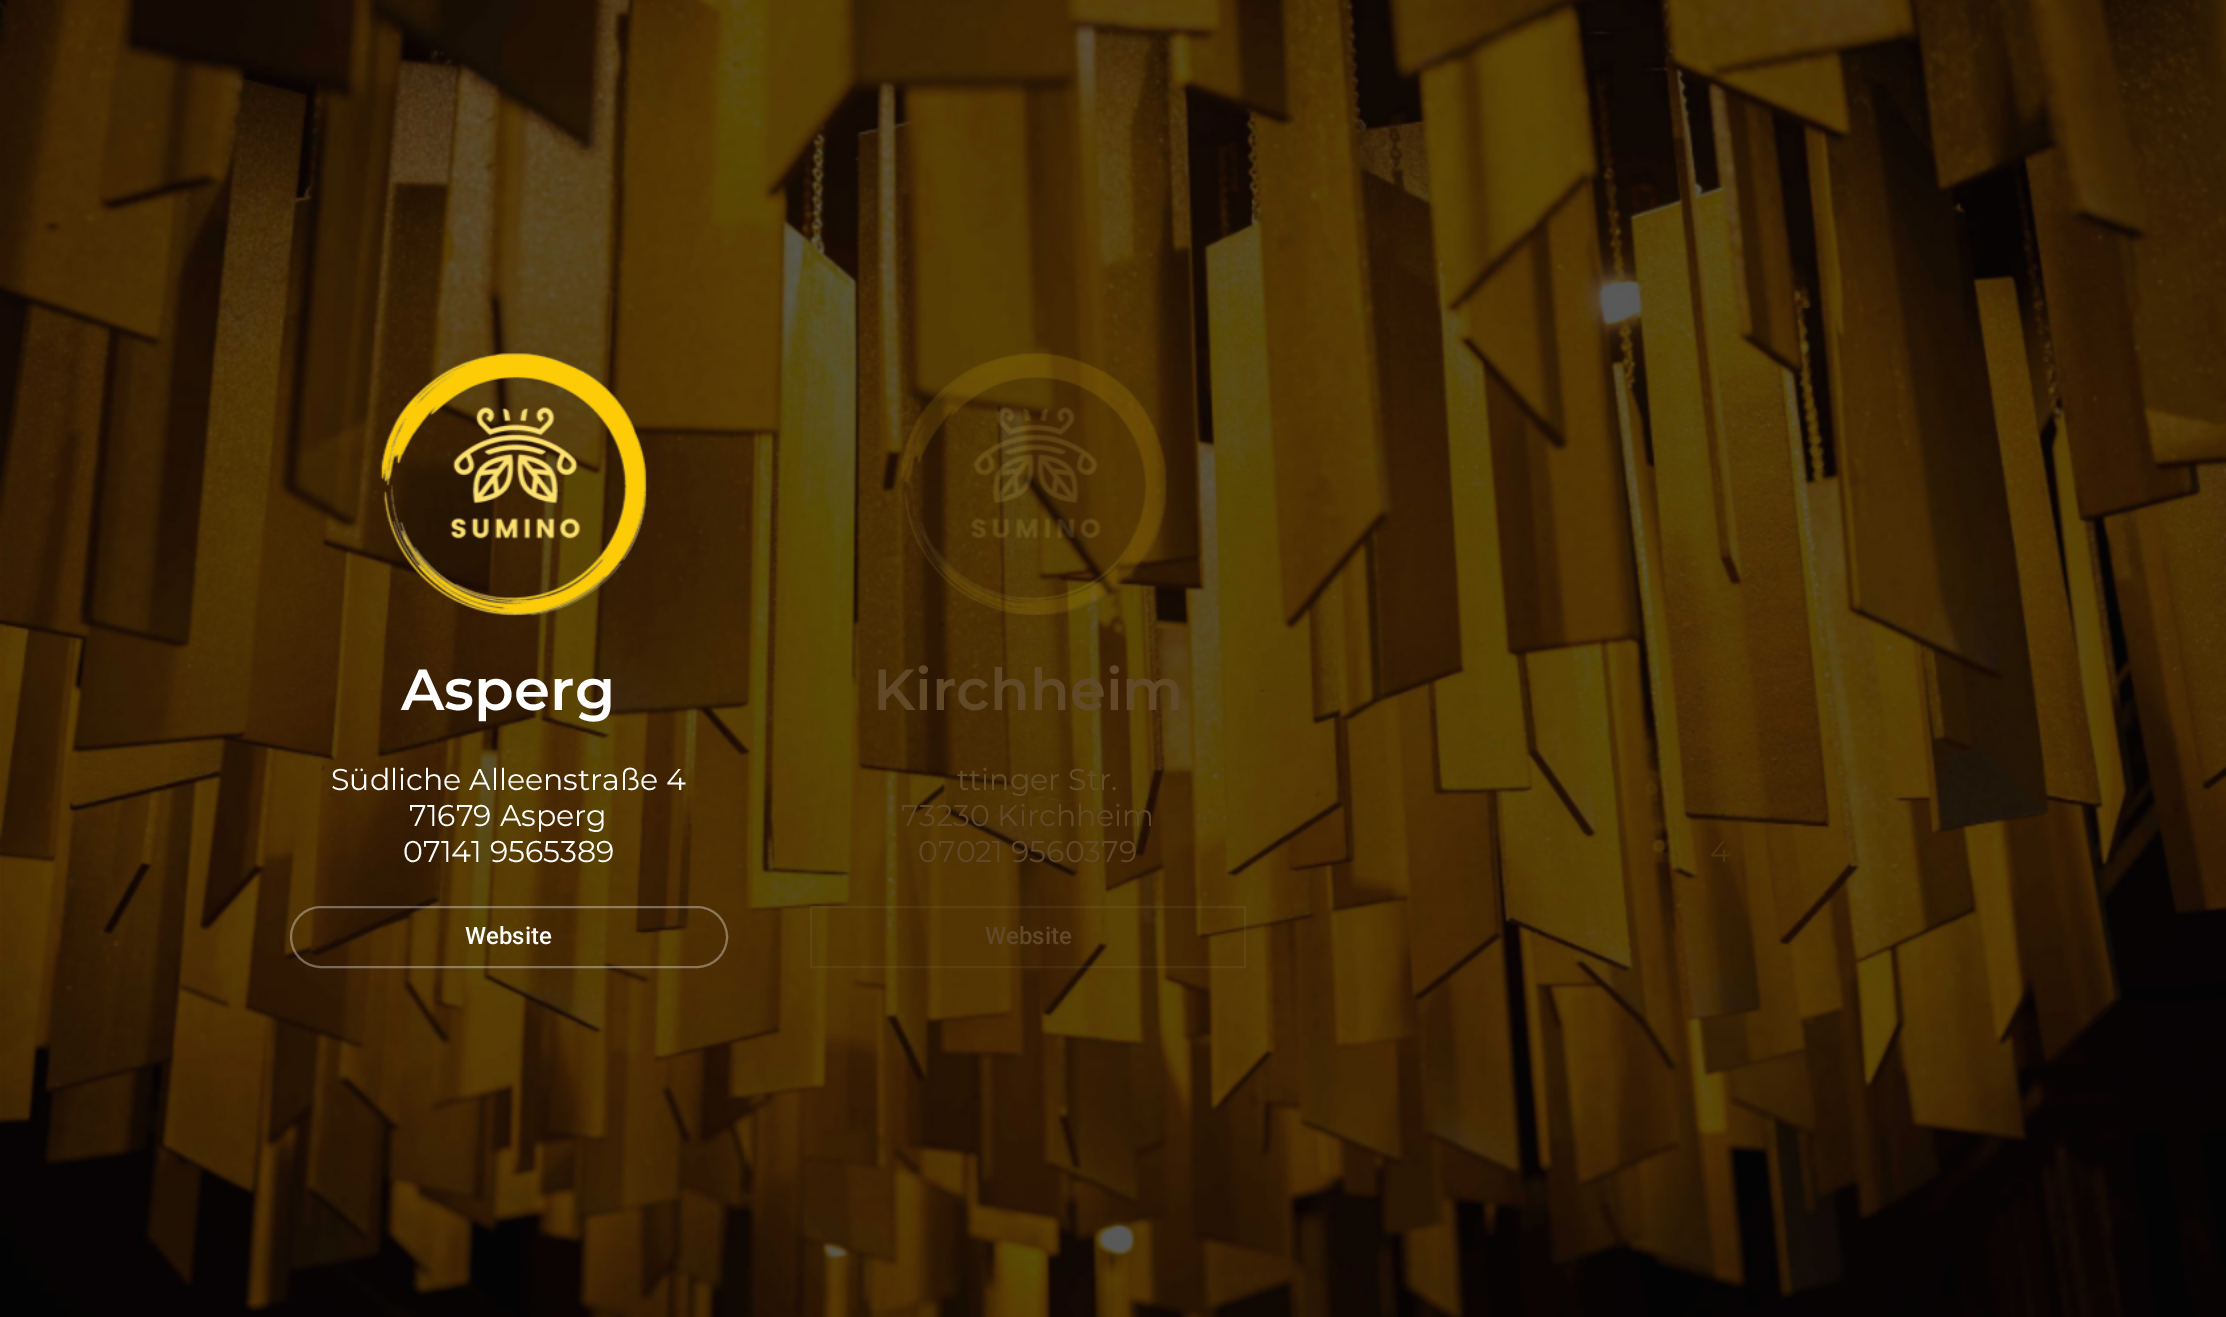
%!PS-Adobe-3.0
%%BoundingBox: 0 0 2226 1317
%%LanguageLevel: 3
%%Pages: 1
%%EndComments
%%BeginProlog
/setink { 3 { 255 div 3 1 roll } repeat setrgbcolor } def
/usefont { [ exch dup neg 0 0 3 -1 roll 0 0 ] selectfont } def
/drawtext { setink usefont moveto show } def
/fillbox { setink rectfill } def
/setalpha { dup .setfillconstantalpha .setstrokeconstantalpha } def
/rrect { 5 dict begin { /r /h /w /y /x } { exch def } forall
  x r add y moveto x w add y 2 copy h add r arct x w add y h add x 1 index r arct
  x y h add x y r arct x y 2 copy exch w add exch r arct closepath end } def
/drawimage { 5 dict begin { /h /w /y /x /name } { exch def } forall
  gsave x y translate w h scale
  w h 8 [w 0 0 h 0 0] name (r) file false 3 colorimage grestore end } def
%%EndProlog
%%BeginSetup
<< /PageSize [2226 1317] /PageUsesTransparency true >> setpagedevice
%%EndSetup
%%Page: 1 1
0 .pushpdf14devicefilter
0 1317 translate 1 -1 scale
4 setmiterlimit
0 0 2226 1317 255 255 255 fillbox
(assets/img1.rgb) 0 0 2226 1317 drawimage
(assets/img2.rgb) 380 353 267 263 drawimage
(Asperg) 401 710 /Montserrat-SemiBold 58 255 254 254 drawtext
(Südliche Alleenstraße 4) 331 790 /Montserrat-Regular 30 255 254 254 drawtext
(71679 Asperg) 409 826 /Montserrat-Regular 30 255 254 254 drawtext
(07141 9565389) 403 862 /Montserrat-Regular 30 255 254 254 drawtext
0.35 setalpha
255 255 255 setink
2 setlinewidth
291 907 436 60 30 rrect stroke
1 setalpha
(Website) 465 944 /Roboto-Medium 24 255 254 254 drawtext
(assets/img3.rgb) 901 353 266 262 drawimage
(Kirchheim) 873 710 /Montserrat-SemiBold 58 97 72 39 drawtext
(ttinger Str.) 957 790 /Montserrat-Regular 30 100 78 39 drawtext
(73230 Kirchheim) 901 826 /Montserrat-Regular 30 97 72 39 drawtext
(07021 9560379) 918 862 /Montserrat-Regular 30 97 72 39 drawtext
0.05 setalpha
255 255 255 setink
811 907 434 60 rectstroke
1 setalpha
(Website) 985 944 /Roboto-Medium 24 97 72 39 drawtext
(4) 1710 862 /Montserrat-Regular 30 80 54 4 drawtext
.poppdf14devicefilter showpage
%%EOF
